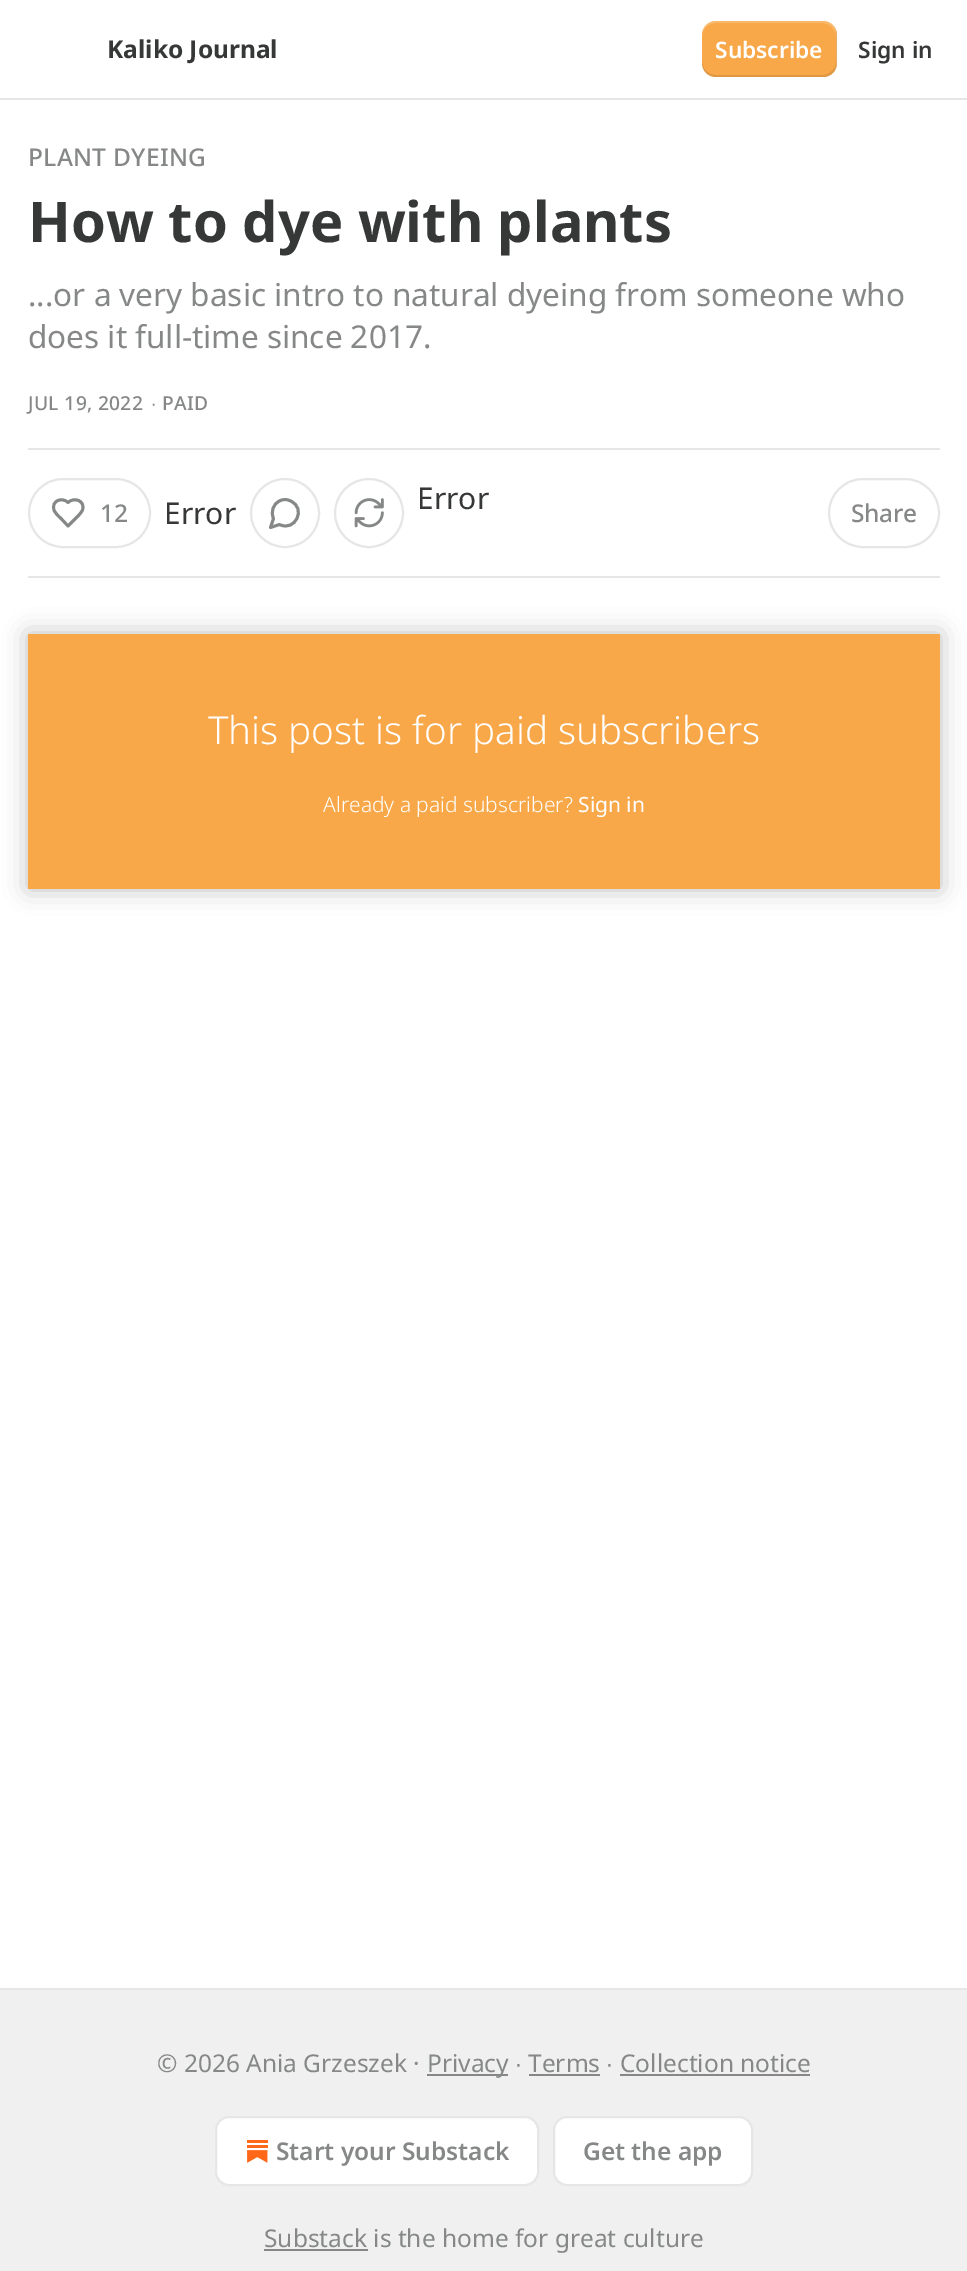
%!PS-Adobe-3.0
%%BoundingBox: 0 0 967 2271
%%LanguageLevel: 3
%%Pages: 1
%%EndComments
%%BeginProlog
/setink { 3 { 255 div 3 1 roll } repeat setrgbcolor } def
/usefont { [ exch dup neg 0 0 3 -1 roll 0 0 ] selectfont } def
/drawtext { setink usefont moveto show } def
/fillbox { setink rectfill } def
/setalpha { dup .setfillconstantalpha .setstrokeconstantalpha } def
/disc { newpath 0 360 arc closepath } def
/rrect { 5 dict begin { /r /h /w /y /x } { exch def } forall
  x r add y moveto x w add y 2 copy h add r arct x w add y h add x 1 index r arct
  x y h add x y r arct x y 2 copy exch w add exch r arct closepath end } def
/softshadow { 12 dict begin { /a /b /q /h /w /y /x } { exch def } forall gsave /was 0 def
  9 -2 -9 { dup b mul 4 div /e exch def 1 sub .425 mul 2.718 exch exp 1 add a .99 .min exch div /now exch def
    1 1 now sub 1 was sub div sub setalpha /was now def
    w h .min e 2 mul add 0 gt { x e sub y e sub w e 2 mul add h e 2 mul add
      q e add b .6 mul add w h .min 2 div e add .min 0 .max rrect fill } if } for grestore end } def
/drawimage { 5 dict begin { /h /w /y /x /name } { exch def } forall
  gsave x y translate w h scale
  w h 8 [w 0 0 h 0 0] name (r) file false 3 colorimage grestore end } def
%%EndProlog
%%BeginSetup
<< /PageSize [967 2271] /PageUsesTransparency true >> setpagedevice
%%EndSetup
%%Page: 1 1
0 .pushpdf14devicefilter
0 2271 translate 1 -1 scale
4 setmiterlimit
0 0 967 2271 255 255 255 fillbox
0 98 967 2 230 230 230 fillbox
(Kaliko Journal) 107 58 /NotoSans-Bold 24.5 54 55 55 drawtext
248 168 72 setink
702 21 135 56 14 rrect fill
0.1 setalpha
0 0 0 setink
702 61 moveto 702 63 lineto 702 71 708 77 716 77 curveto 823 77 lineto 831 77 837 71 837 63 curveto 837 35 lineto 837 32 836 29 835 27 curveto 836 29 836 31 836 33 curveto 836 61 lineto 836 69 830 75 822 75 curveto 716 75 lineto 708 75 702 69 702 61 curveto closepath fill
0.2 setalpha
255 255 255 setink
716 23 moveto 822 23 lineto 830 23 836 29 836 37 curveto 836 65 lineto 836 67 836 69 835 71 curveto 836 69 837 66 837 63 curveto 837 35 lineto 837 27 831 21 823 21 curveto 716 21 lineto 708 21 702 27 702 35 curveto 702 37 lineto 702 29 708 23 716 23 curveto closepath fill
1 setalpha
(Subscribe) 715 58 /NotoSans-SemiBold 22.75 255 255 255 drawtext
(Sign in) 858 58 /NotoSans-SemiBold 22.75 54 55 55 drawtext
/NotoSans-Medium 24.5 usefont
134 135 135 setink
28 166 moveto 0.3 0 (PLANT DYEING) ashow
(How to dye with plants) 28 242 /NotoSans-Bold 56 54 55 55 drawtext
(...or a very basic intro to natural dyeing from someone who) 28 306 /NotoSans-Regular 31.5 134 135 135 drawtext
(does it full-time since 2017.) 28 348 /NotoSans-Regular 31.5 134 135 135 drawtext
/NotoSans-Medium 19.25 usefont
28 410 moveto 0.3 0 (JUL 19, 2022) ashow
/LiberationSans-Regular 19.25 usefont
151 410 moveto 0.3 0 (∙) ashow
/NotoSans-Medium 19.25 usefont
162 410 moveto 0.3 0 (PAID) ashow
28 448 912 2 230 230 230 fillbox
28 576 912 2 230 230 230 fillbox
2 setlinewidth
285 513 34 disc stroke
134 135 135 setink
2.9 setlinewidth
1 setlinecap
1 setlinejoin
279.5 524.5 moveto 295 532.5 307 508 290.5 501 curveto 287 499 283 499 279.5 501 curveto 273 504 270.5 512 273.5 518.5 curveto 270.5 527.5 lineto closepath stroke
230 230 230 setink
2 setlinewidth
0 setlinecap
0 setlinejoin
369 513 34 disc stroke
(assets/img1.rgb) 354 498 30 30 drawimage
(Error) 417 509 /NotoSans-Regular 30 54 55 55 drawtext
230 230 230 setink
29 479 121 68 34 rrect stroke
134 135 135 setink
2.9 setlinewidth
1 setlinecap
1 setlinejoin
78.5 515.5 moveto 80 514 81.5 512 82.5 510 curveto 85.5 501 74.5 496.5 68 502.5 curveto 62 496.5 51 501 54 510 curveto 55 513.5 59 516.5 61.5 519 curveto 68 526 lineto closepath stroke
/NotoSans-Medium 24.5 usefont
100 522 moveto -0.25 0 (12) ashow
(Error) 164 524 /NotoSans-Regular 30 54 55 55 drawtext
230 230 230 setink
2 setlinewidth
0 setlinecap
0 setlinejoin
829 479 110 68 34 rrect stroke
/NotoSans-Medium 24.5 usefont
134 135 135 setink
851 522 moveto -0.25 0 (Share) ashow
28 634 912 255 248 168 72 fillbox
gsave
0 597 moveto 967 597 lineto 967 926 lineto 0 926 lineto closepath 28 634 moveto 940 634 lineto 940 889 lineto 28 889 lineto closepath eoclip newpath
0 0 0 setink
28 634 912 255 0 12 0.25 softshadow
grestore
(This post is for paid subscribers) 208 744 /NotoSans-Light 38.5 255 255 255 drawtext
(Already a paid subscriber?) 323 812 /NotoSans-Light 21 255 255 255 drawtext
(Sign in) 578 812 /NotoSans-Regular 21 255 255 255 drawtext
0 1990 967 281 240 240 240 fillbox
0 1988 967 2 230 230 230 fillbox
(© 2026 Ania Grzeszek ·) 157 2072 /NotoSans-Regular 24.5 134 135 135 drawtext
427 2074 81 2 134 135 135 fillbox
(Privacy) 427 2072 /NotoSans-Regular 24.5 134 135 135 drawtext
(∙) 515 2072 /LiberationSans-Regular 24.5 134 135 135 drawtext
(Terms) 528 2072 /NotoSans-Regular 24.5 134 135 135 drawtext
529 2074 71 2 134 135 135 fillbox
(∙) 606 2072 /LiberationSans-Regular 24.5 134 135 135 drawtext
(Collection notice) 620 2072 /NotoSans-Regular 24.5 134 135 135 drawtext
620 2074 190 2 134 135 135 fillbox
255 255 255 setink
216 2117 322 68 13 rrect gsave fill grestore
230 230 230 setink
stroke
(assets/img2.rgb) 247 2140 21 23 drawimage
(Start your Substack) 276 2160 /NotoSans-SemiBold 24.5 134 135 135 drawtext
255 255 255 setink
554 2117 198 68 13 rrect gsave fill grestore
230 230 230 setink
stroke
(Get the app) 583 2160 /NotoSans-SemiBold 24.5 134 135 135 drawtext
264 2249 104 2 134 135 135 fillbox
(Substack is the home for great culture) 264 2247 /NotoSans-Regular 24.5 134 135 135 drawtext
.poppdf14devicefilter showpage
%%EOF
